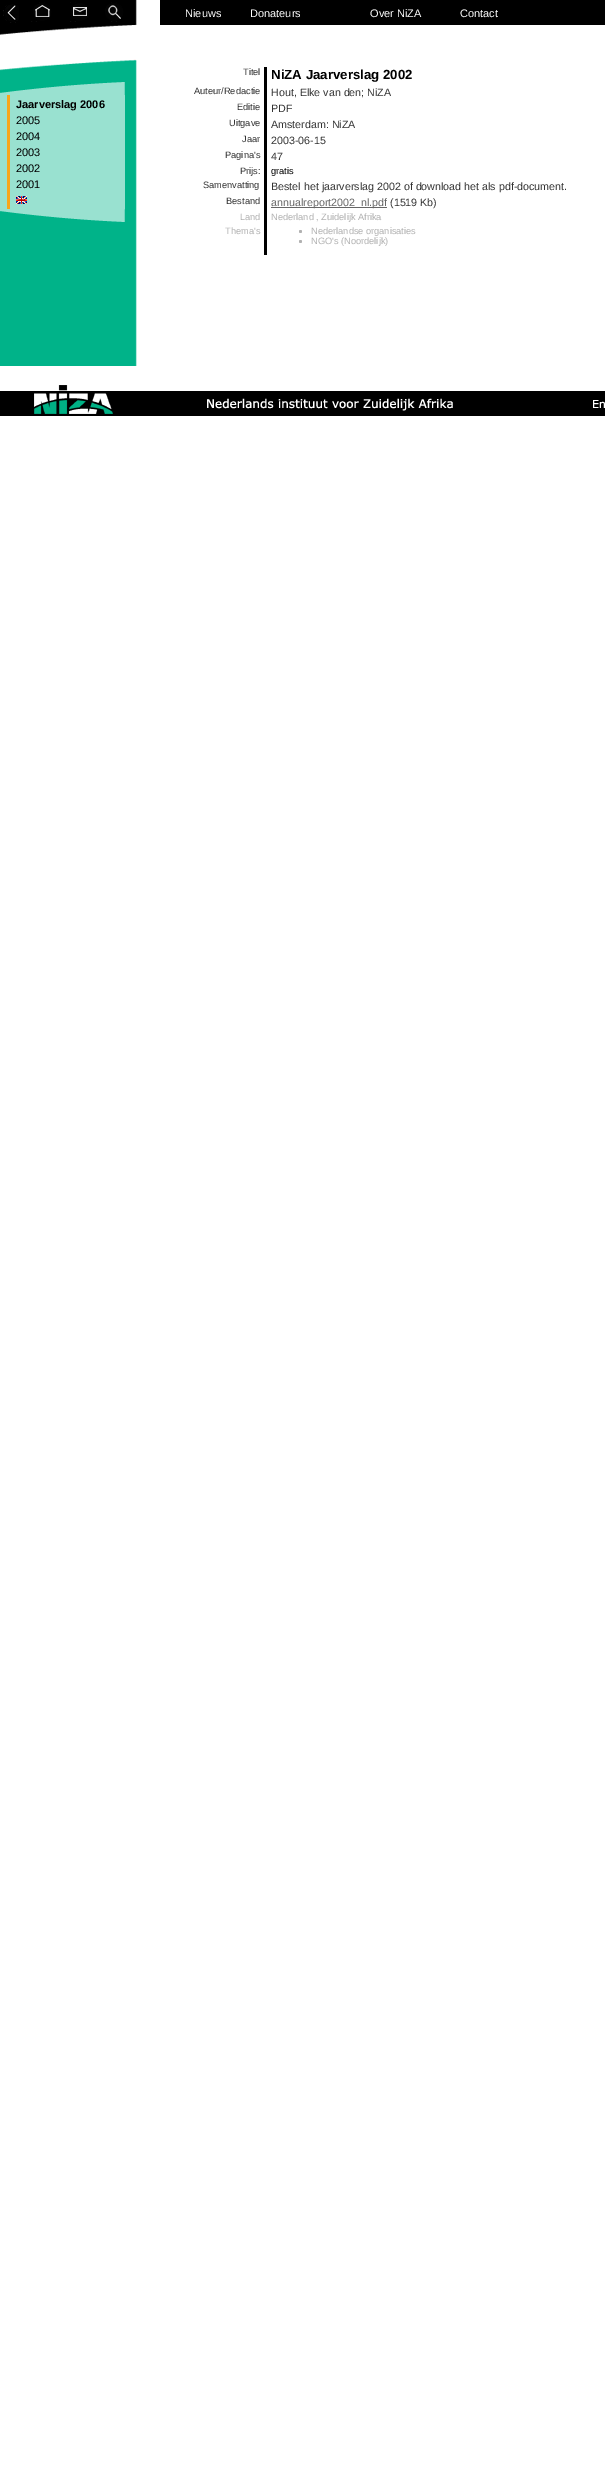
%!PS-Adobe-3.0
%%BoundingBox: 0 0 605 2471
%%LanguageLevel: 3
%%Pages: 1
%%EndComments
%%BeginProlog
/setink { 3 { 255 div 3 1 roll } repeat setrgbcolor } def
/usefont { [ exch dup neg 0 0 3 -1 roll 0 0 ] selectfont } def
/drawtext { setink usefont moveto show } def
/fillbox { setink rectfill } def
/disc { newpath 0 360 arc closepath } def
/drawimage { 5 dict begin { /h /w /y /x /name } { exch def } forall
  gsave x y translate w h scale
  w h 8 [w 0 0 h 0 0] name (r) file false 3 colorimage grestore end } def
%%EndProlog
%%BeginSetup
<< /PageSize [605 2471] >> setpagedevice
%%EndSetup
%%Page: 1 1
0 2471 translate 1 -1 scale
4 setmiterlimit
0 0 605 2471 255 255 255 fillbox
(assets/img7.rgb) 0 71 137 295 drawimage
0 95 7 114 153 225 208 fillbox
7 95 3 114 248 166 28 fillbox
10 95 115 114 153 225 208 fillbox
(Jaarverslag 2006) 16 108 /LiberationSans-Bold 11 0 0 0 drawtext
(assets/img1.rgb) 0 0 25 25 drawimage
(assets/img2.rgb) 25 0 35 25 drawimage
(assets/img3.rgb) 60 0 35 25 drawimage
(assets/img4.rgb) 95 0 40 25 drawimage
(assets/img5.rgb) 135 0 2 25 drawimage
160 0 445 25 0 0 0 fillbox
(Nieuws) 185 17 /LiberationSans-Regular 11 255 255 255 drawtext
(Donateurs) 250 17 /LiberationSans-Regular 11 255 255 255 drawtext
(Over NiZA) 370 17 /LiberationSans-Regular 11 255 255 255 drawtext
(Contact) 460 17 /LiberationSans-Regular 11 255 255 255 drawtext
(assets/img6.rgb) 0 25 136 35 drawimage
(assets/img8.rgb) 0 60 137 11 drawimage
(assets/img9.rgb) 0 82 125 13 drawimage
(Titel) 243 75 /LiberationSans-Regular 9.25 51 51 51 drawtext
264 67 3 188 0 0 0 fillbox
(NiZA Jaarverslag 2002) 271 79 /LiberationSans-Bold 13.25 0 0 0 drawtext
(Auteur/Redactie) 194 94 /LiberationSans-Regular 9.25 51 51 51 drawtext
(Hout, Elke van den; NiZA) 271 96 /LiberationSans-Regular 10.7 51 51 51 drawtext
(Editie) 237 110 /LiberationSans-Regular 9.25 51 51 51 drawtext
(PDF) 271 112 /LiberationSans-Regular 10.7 51 51 51 drawtext
(Uitgave) 229 126 /LiberationSans-Regular 9.25 51 51 51 drawtext
(Amsterdam: NiZA) 271 128 /LiberationSans-Regular 10.7 51 51 51 drawtext
(Jaar) 242 142 /LiberationSans-Regular 9.25 51 51 51 drawtext
(2003-06-15) 271 144 /LiberationSans-Regular 10.7 51 51 51 drawtext
(Pagina's) 225 158 /LiberationSans-Regular 9.25 51 51 51 drawtext
(47) 271 160 /LiberationSans-Regular 10.7 51 51 51 drawtext
(Prijs:) 240 174 /LiberationSans-Regular 9.25 51 51 51 drawtext
(gratis) 271 174 /LiberationSans-Regular 9.25 0 0 0 drawtext
(Samenvatting) 203 188 /LiberationSans-Regular 9.25 51 51 51 drawtext
(Bestel het jaarverslag 2002 of download het als pdf-document.) 271 190 /LiberationSans-Regular 10.7 51 51 51 drawtext
(Bestand) 226 204 /LiberationSans-Regular 9.25 51 51 51 drawtext
271 207 116 1 102 102 102 fillbox
(annualreport2002_nl.pdf) 271 206 /LiberationSans-Regular 10.7 102 102 102 drawtext
(\(1519 Kb\)) 390 206 /LiberationSans-Regular 10.7 51 51 51 drawtext
(Land) 240 220 /LiberationSans-Regular 9.25 177 177 177 drawtext
(Nederland , Zuidelijk Afrika) 271 220 /LiberationSans-Regular 9.25 177 177 177 drawtext
(Thema's) 225 234 /LiberationSans-Regular 9.25 177 177 177 drawtext
300.5 231.5 1.5 disc fill
(Nederlandse organisaties) 311 234 /LiberationSans-Regular 9.25 177 177 177 drawtext
300.5 241.5 1.5 disc fill
(NGO's \(Noordelijk\)) 311 244 /LiberationSans-Regular 9.25 177 177 177 drawtext
(assets/img10.rgb) 0 385 160 31 drawimage
(assets/img11.rgb) 160 391 420 25 drawimage
(assets/img12.rgb) 580 391 25 25 drawimage
(2005) 16 124 /LiberationSans-Regular 11 0 0 0 drawtext
(2004) 16 140 /LiberationSans-Regular 11 0 0 0 drawtext
(2003) 16 156 /LiberationSans-Regular 11 0 0 0 drawtext
(2002) 16 172 /LiberationSans-Regular 11 0 0 0 drawtext
(2001) 16 188 /LiberationSans-Regular 11 0 0 0 drawtext
(assets/img13.rgb) 16 196 11 8 drawimage
(assets/img14.rgb) 0 209 125 13 drawimage
showpage
%%EOF
